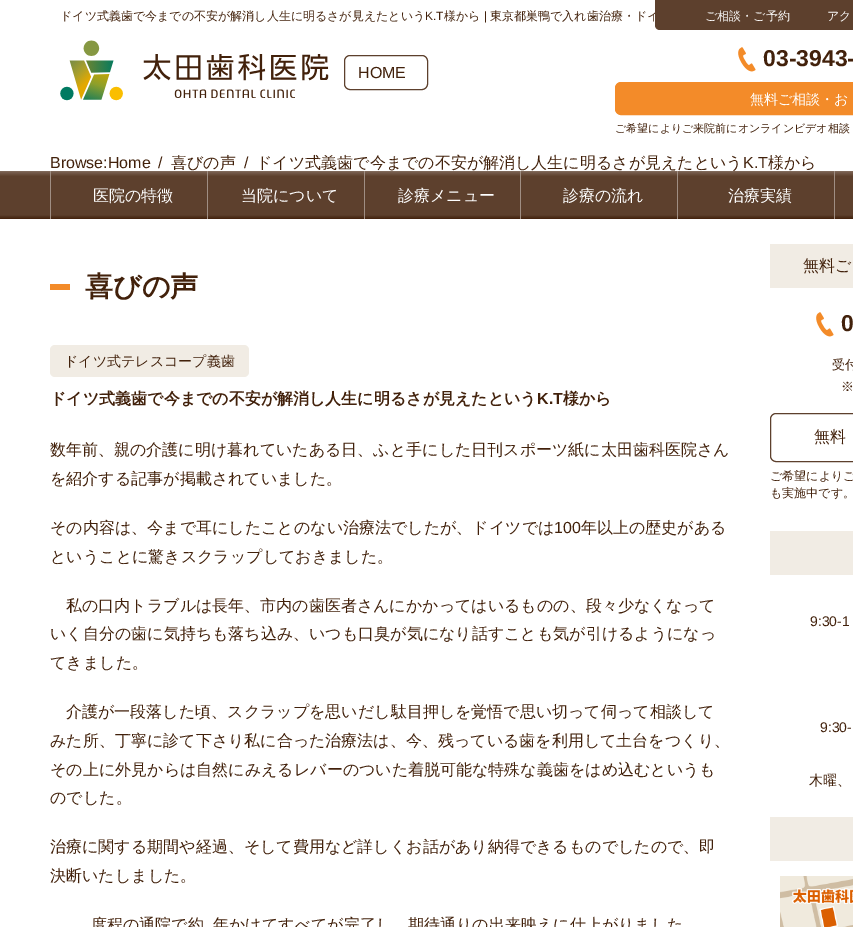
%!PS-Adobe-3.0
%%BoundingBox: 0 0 853 927
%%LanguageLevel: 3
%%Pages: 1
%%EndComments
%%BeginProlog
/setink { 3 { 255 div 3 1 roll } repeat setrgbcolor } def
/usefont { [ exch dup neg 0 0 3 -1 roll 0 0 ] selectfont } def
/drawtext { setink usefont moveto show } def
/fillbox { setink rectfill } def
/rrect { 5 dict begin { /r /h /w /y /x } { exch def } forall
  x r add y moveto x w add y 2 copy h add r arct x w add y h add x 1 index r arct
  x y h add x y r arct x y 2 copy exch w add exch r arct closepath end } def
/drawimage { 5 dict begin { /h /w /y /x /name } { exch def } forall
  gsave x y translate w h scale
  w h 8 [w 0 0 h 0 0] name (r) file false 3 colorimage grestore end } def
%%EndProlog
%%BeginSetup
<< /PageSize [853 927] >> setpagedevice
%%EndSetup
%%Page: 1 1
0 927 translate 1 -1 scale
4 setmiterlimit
0 0 853 927 255 255 255 fillbox
(ドイツ式義歯で今までの不安が解消し人生に明るさが見えたという) 60 20 /WenQuanYiZenHei-Medium 12 66 33 11 drawtext
(K.T) 425 20 /LiberationSans-Regular 12 66 33 11 drawtext
(様から) 444 20 /WenQuanYiZenHei-Medium 12 66 33 11 drawtext
(|) 484 20 /LiberationSans-Regular 12 66 33 11 drawtext
(東京都巣鴨で入れ歯治療・ドイ) 490 20 /WenQuanYiZenHei-Medium 12 66 33 11 drawtext
(assets/img1.rgb) 60 40 269 61 drawimage
93 64 45 setink
344.5 55.5 83 34 5.5 rrect stroke
(HOME) 358 78 /LiberationSans-Regular 16 66 33 11 drawtext
(assets/img2.rgb) 738 47 18 25 drawimage
(03-3943-) 763 66 /LiberationSans-Bold 23 66 33 11 drawtext
243 139 41 setink
615.5 82.5 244 32 5.5 rrect gsave fill grestore
stroke
(無料ご相談・お) 750 104 /WenQuanYiZenHei-Medium 14 255 255 255 drawtext
(ご希望によりご来院前にオンラインビデオ相談) 615 132 /WenQuanYiZenHei-Medium 11 66 33 11 drawtext
93 64 45 setink
655 0 moveto 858 0 lineto 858 25 lineto 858 28 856 30 853 30 curveto 660 30 lineto 657 30 655 28 655 25 curveto closepath fill
(ご相談・ご予約) 705 20 /WenQuanYiZenHei-Medium 12 255 255 255 drawtext
(アク) 827 20 /WenQuanYiZenHei-Medium 12 255 255 255 drawtext
(Browse:Home) 50 168 /LiberationSans-Regular 16 66 33 11 drawtext
(/) 158 168 /LiberationSans-Regular 16 66 33 11 drawtext
(喜びの声) 171 168 /WenQuanYiZenHei-Medium 16 66 33 11 drawtext
(/) 244 168 /LiberationSans-Regular 16 66 33 11 drawtext
(ドイツ式義歯で今までの不安が解消し人生に明るさが見えたという) 256 168 /WenQuanYiZenHei-Medium 16 66 33 11 drawtext
(K.T) 743 168 /LiberationSans-Regular 16 66 33 11 drawtext
(様から) 768 168 /WenQuanYiZenHei-Medium 16 66 33 11 drawtext
gsave 0 171 moveto 853 171 lineto 853 219 lineto 0 219 lineto closepath clip newpath
<< /ShadingType 2 /ColorSpace /DeviceRGB /Coords [540 219 540 171] /Extend [true true] /Function << /FunctionType 3 /Domain [0 1] /Functions [<< /FunctionType 2 /Domain [0 1] /C0 [0.259 0.129 0.043] /C1 [0.341 0.227 0.149] /N 1 >> << /FunctionType 2 /Domain [0 1] /C0 [0.341 0.227 0.149] /C1 [0.365 0.251 0.176] /N 1 >> << /FunctionType 2 /Domain [0 1] /C0 [0.365 0.251 0.176] /C1 [0.365 0.251 0.176] /N 1 >> << /FunctionType 2 /Domain [0 1] /C0 [0.365 0.251 0.176] /C1 [0.498 0.408 0.349] /N 1 >>] /Bounds [0.07 0.08 0.89] /Encode [0 1 0 1 0 1 0 1] >> >> shfill grestore
50 171 1 48 159 142 131 fillbox
(医院の特徴) 93 201 /WenQuanYiZenHei-Medium 16 255 255 255 drawtext
207 171 1 48 159 142 131 fillbox
(当院について) 241 201 /WenQuanYiZenHei-Medium 16 255 255 255 drawtext
364 171 1 48 159 142 131 fillbox
(診療メニュー) 398 201 /WenQuanYiZenHei-Medium 16 255 255 255 drawtext
520 171 1 48 159 142 131 fillbox
(診療の流れ) 563 201 /WenQuanYiZenHei-Medium 16 255 255 255 drawtext
677 171 1 48 159 142 131 fillbox
(治療実績) 728 201 /WenQuanYiZenHei-Medium 16 255 255 255 drawtext
834 171 1 48 159 142 131 fillbox
50 284 20 6 243 139 41 fillbox
(喜びの声) 85 296 /WenQuanYiZenHei-Bold 28 66 33 11 drawtext
241 236 228 setink
50 345 199 32 5 rrect fill
(ドイツ式テレスコープ義歯) 64 366 /WenQuanYiZenHei-Medium 14 66 33 11 drawtext
(ドイツ式義歯で今までの不安が解消し人生に明るさが見えたという) 50 404 /WenQuanYiZenHei-Bold 16 66 33 11 drawtext
(K.T) 537 404 /LiberationSans-Bold 16 66 33 11 drawtext
(様から) 563 404 /WenQuanYiZenHei-Bold 16 66 33 11 drawtext
(数年前、親の介護に明け暮れていたある日、ふと手にした日刊スポーツ紙に太田歯科医院さん) 50 455 /WenQuanYiZenHei-Medium 16 66 33 11 drawtext
(を紹介する記事が掲載されていました。) 50 484 /WenQuanYiZenHei-Medium 16 66 33 11 drawtext
(その内容は、今まで耳にしたことのない治療法でしたが、ドイツでは) 50 533 /WenQuanYiZenHei-Medium 16 66 33 11 drawtext
(100) 554 533 /LiberationSans-Regular 16 66 33 11 drawtext
(年以上の歴史がある) 581 533 /WenQuanYiZenHei-Medium 16 66 33 11 drawtext
(ということに驚きスクラップしておきました。) 50 562 /WenQuanYiZenHei-Medium 16 66 33 11 drawtext
(私の口内トラブルは長年、市内の歯医者さんにかかってはいるものの、段々少なくなって) 66 611 /WenQuanYiZenHei-Medium 16 66 33 11 drawtext
(いく自分の歯に気持ちも落ち込み、いつも口臭が気になり話すことも気が引けるようになっ) 50 639 /WenQuanYiZenHei-Medium 16 66 33 11 drawtext
(てきました。) 50 668 /WenQuanYiZenHei-Medium 16 66 33 11 drawtext
(介護が一段落した頃、スクラップを思いだし駄目押しを覚悟で思い切って伺って相談して) 66 717 /WenQuanYiZenHei-Medium 16 66 33 11 drawtext
(みた所、丁寧に診て下さり私に合った治療法は、今、残っている歯を利用して土台をつくり、) 50 746 /WenQuanYiZenHei-Medium 16 66 33 11 drawtext
(その上に外見からは自然にみえるレバーのついた着脱可能な特殊な義歯をはめ込むというも) 50 775 /WenQuanYiZenHei-Medium 16 66 33 11 drawtext
(のでした。) 50 803 /WenQuanYiZenHei-Medium 16 66 33 11 drawtext
(治療に関する期間や経過、そして費用など詳しくお話があり納得できるものでしたので、即) 50 852 /WenQuanYiZenHei-Medium 16 66 33 11 drawtext
(決断いたしました。) 50 881 /WenQuanYiZenHei-Medium 16 66 33 11 drawtext
(度程の通院で約) 91 930 /WenQuanYiZenHei-Medium 16 66 33 11 drawtext
(年かけてすべてが完了し、期待通りの出来映えに仕上がりました) 213 930 /WenQuanYiZenHei-Medium 16 66 33 11 drawtext
770 244 83 44 241 236 228 fillbox
(無料ご) 803 271 /WenQuanYiZenHei-Medium 16 66 33 11 drawtext
(assets/img2.rgb) 816 312 18 25 drawimage
(0) 841 331 /LiberationSans-Bold 23 66 33 11 drawtext
(受付) 832 369 /WenQuanYiZenHei-Medium 13 66 33 11 drawtext
(※) 841 391 /WenQuanYiZenHei-Medium 13 66 33 11 drawtext
93 64 45 setink
770.5 413.5 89 48 5.5 rrect stroke
(無料) 814 442 /WenQuanYiZenHei-Medium 16 66 33 11 drawtext
(ご希望によりご) 770 480 /WenQuanYiZenHei-Medium 12 66 33 11 drawtext
(も実施中です。) 770 497 /WenQuanYiZenHei-Medium 12 66 33 11 drawtext
770 531 83 44 241 236 228 fillbox
(9:30-1) 810 626 /LiberationSans-Regular 14 66 33 11 drawtext
(9:30-) 820 732 /LiberationSans-Regular 14 66 33 11 drawtext
(木曜、) 809 785 /WenQuanYiZenHei-Medium 14 66 33 11 drawtext
770 817 83 44 241 236 228 fillbox
(assets/img3.rgb) 780 876 73 51 drawimage
showpage
%%EOF
